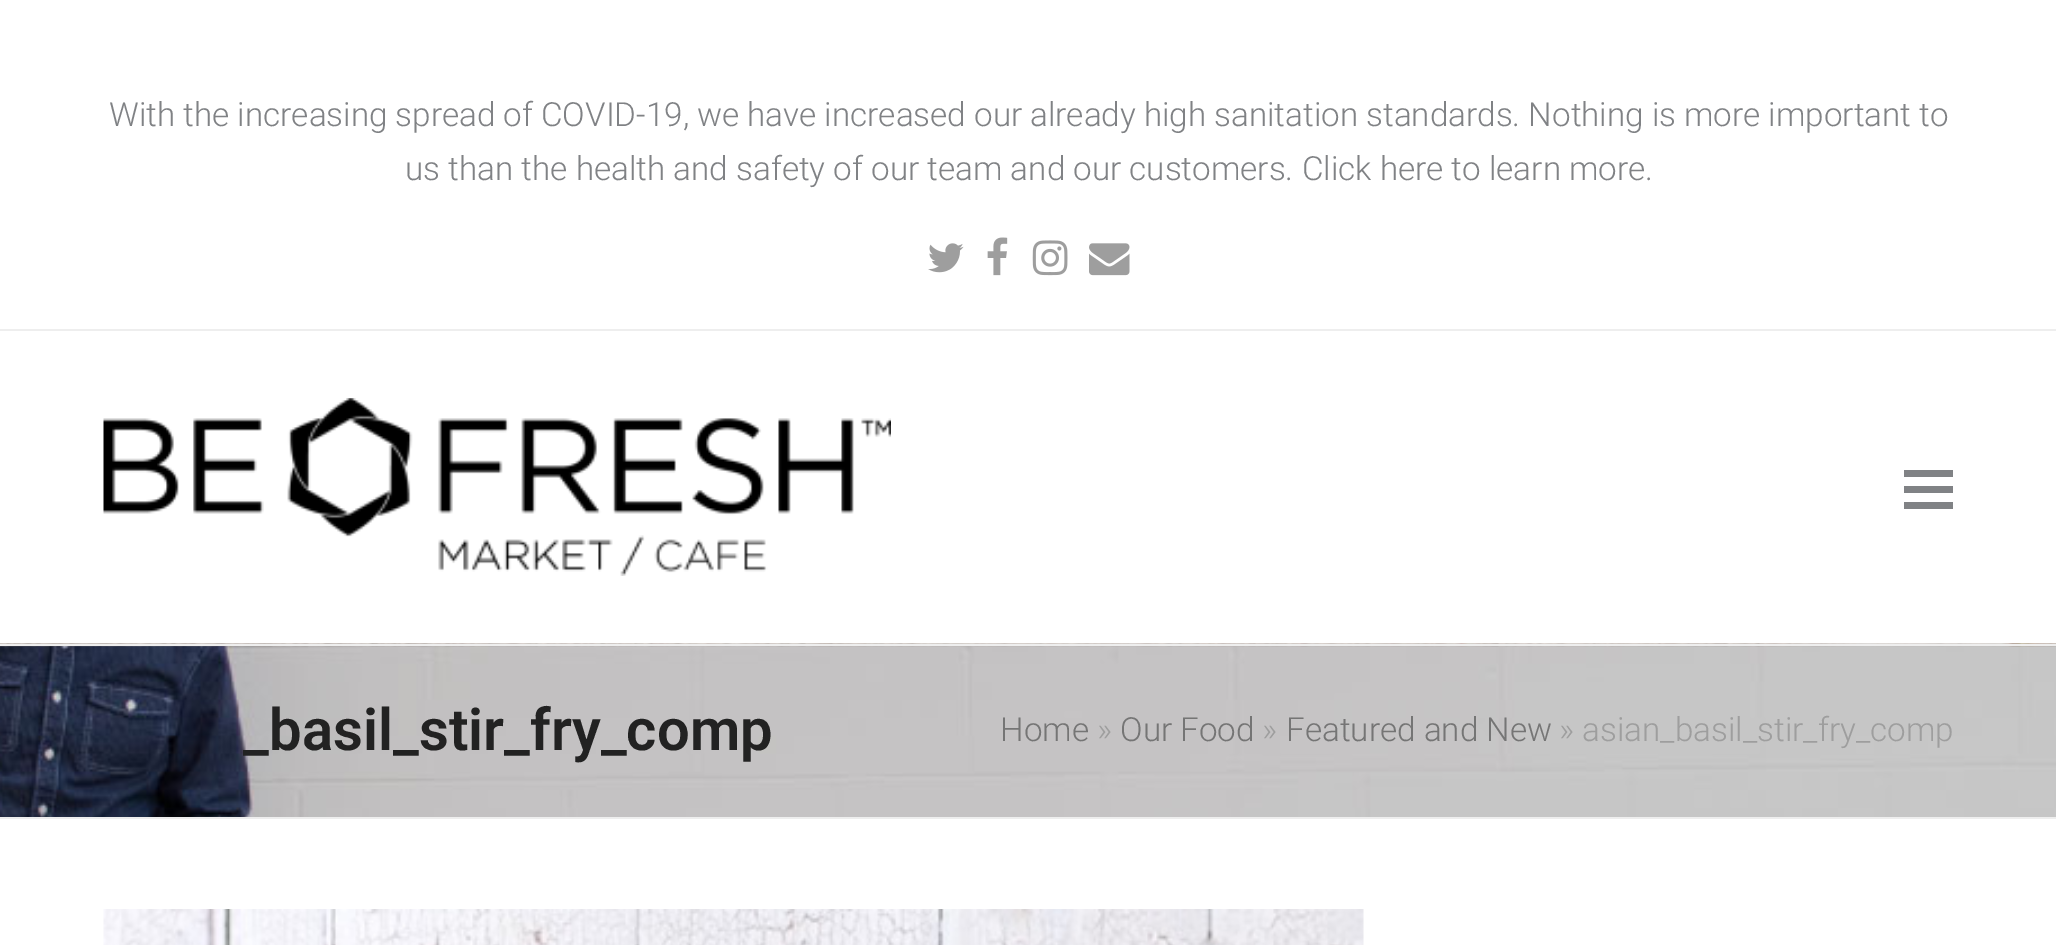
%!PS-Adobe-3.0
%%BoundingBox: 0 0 2056 945
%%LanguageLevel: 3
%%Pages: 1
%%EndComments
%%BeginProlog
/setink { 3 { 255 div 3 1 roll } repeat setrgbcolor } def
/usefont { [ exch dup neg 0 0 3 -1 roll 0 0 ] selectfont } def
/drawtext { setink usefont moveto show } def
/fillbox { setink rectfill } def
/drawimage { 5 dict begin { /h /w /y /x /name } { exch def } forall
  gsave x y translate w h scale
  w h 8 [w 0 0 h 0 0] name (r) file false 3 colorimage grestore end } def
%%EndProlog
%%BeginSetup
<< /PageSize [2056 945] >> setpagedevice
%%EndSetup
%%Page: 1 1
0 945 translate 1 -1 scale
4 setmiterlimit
0 0 2056 945 255 255 255 fillbox
0 329 2056 2 238 238 238 fillbox
/Roboto-Light 33.23 usefont
128 130 133 setink
109 126 moveto -0.1 0 32 (With the increasing spread of COVID-19, we have increased our already high sanitation standards. Nothing is more important to) widthshow
(us than the health and safety of our team and our customers. Click here to learn more.) 405 180 /Roboto-Light 33.23 128 130 133 drawtext
(assets/img1.rgb) 928 243 36 30 drawimage
(assets/img2.rgb) 987 237 21 39 drawimage
(assets/img3.rgb) 1032 240 36 36 drawimage
(assets/img4.rgb) 1089 243 41 33 drawimage
(assets/img5.rgb) 103 398 788 178 drawimage
1904 486 49 7 128 130 133 fillbox
1904 470 49 7 128 130 133 fillbox
1904 502 49 7 128 130 133 fillbox
(assets/img6.rgb) 0 643 2056 174 drawimage
0 644 2056 2 238 238 238 fillbox
0 817 2056 2 238 238 238 fillbox
(_basil_stir_fry_comp) 243 750 /Roboto-SemiBold 58.1 34 34 34 drawtext
(Home) 1000 741 /Roboto-Light 33.23 117 117 117 drawtext
(») 1097 741 /Roboto-Light 33.23 158 158 158 drawtext
(Our Food) 1120 741 /Roboto-Light 33.23 117 117 117 drawtext
(») 1262 741 /Roboto-Light 33.23 158 158 158 drawtext
(Featured and New) 1286 741 /Roboto-Light 33.23 117 117 117 drawtext
(» asian_basil_stir_fry_comp) 1559 741 /Roboto-Light 33.23 158 158 158 drawtext
(assets/img7.rgb) 103 909 1261 36 drawimage
showpage
%%EOF
